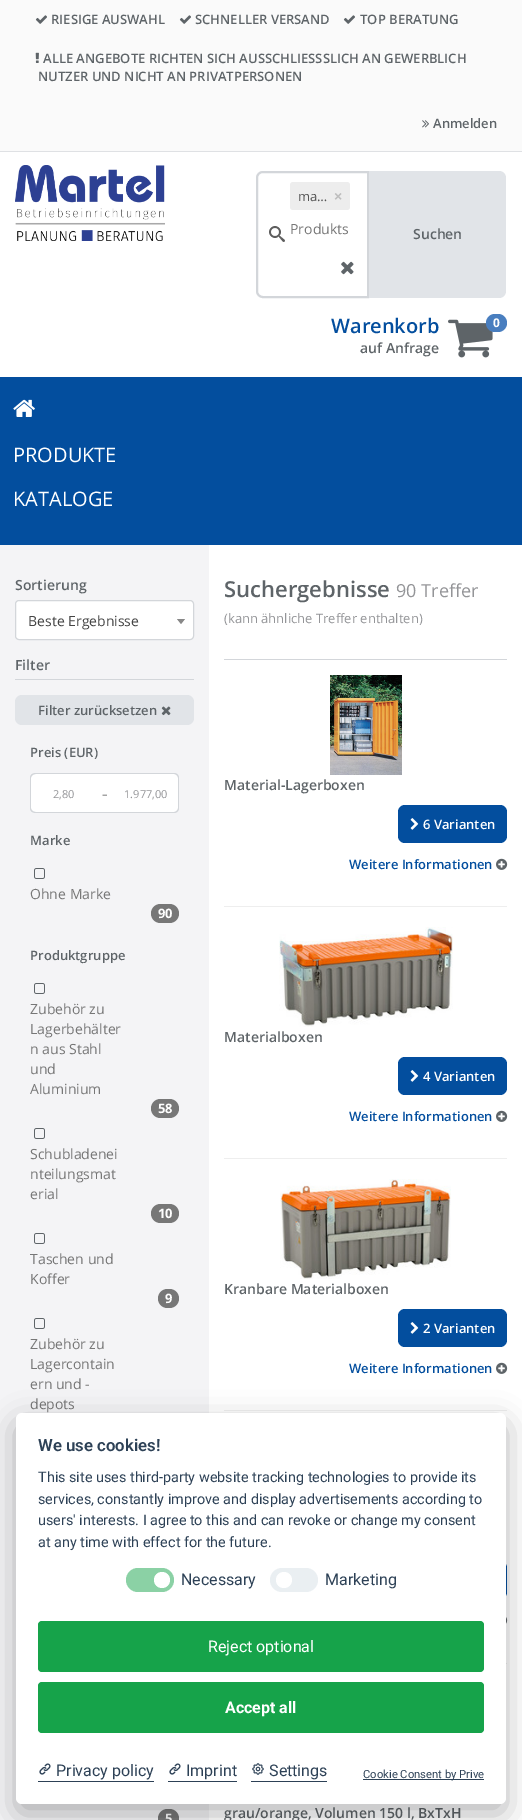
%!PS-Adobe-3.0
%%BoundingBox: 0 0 522 1820
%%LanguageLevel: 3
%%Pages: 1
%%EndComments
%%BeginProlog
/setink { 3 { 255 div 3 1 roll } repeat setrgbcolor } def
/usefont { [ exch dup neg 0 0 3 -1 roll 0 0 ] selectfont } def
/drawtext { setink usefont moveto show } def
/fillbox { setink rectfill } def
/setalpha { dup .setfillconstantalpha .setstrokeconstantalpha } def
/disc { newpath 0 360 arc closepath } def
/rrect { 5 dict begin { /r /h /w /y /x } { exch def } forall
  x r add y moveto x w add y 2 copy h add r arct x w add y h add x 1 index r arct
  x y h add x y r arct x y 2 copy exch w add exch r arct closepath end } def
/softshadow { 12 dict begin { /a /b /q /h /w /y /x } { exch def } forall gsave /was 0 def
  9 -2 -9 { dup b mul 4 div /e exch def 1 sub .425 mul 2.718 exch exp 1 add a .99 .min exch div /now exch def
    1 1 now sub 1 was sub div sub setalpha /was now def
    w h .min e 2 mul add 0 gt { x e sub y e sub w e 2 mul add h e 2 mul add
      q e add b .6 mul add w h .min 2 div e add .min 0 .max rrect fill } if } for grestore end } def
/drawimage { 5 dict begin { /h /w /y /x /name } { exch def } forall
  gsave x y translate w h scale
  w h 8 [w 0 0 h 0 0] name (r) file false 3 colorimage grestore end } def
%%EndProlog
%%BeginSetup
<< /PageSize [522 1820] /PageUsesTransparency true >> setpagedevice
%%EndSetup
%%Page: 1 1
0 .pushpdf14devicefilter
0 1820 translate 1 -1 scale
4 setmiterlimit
0 0 522 1820 255 255 255 fillbox
0 0 522 151 250 250 250 fillbox
0 151 522 1 223 225 228 fillbox
(assets/img1.rgb) 35 15 12 9 drawimage
(RIESIGE AUSWAHL) 51 24 /OpenSans-SemiBold 13 94 100 104 drawtext
(assets/img1.rgb) 179 15 12 9 drawimage
(SCHNELLER VERSAND) 195 24 /OpenSans-SemiBold 13 94 100 104 drawtext
(assets/img1.rgb) 343 15 12 9 drawimage
(TOP BERATUNG) 360 24 /OpenSans-SemiBold 13 94 100 104 drawtext
(assets/img2.rgb) 35 52 4 11 drawimage
(ALLE ANGEBOTE RICHTEN SICH AUSSCHLIESSSLICH AN GEWERBLICH) 43 63 /OpenSans-SemiBold 13 94 100 104 drawtext
(NUTZER UND NICHT AN PRIVATPERSONEN) 38 81 /OpenSans-SemiBold 13 94 100 104 drawtext
(assets/img3.rgb) 422 120 7 8 drawimage
(Anmelden) 433 128 /OpenSans-SemiBold 13 94 100 104 drawtext
(assets/img4.rgb) 15 165 150 76 drawimage
(assets/img5.rgb) 269 226 16 16 drawimage
211 214 218 setink
2 setlinewidth
263 172 moveto 368 172 lineto 368 297 lineto 263 297 lineto 259.5 297 257 294.5 257 291 curveto 257 178 lineto 257 174.5 259.5 172 263 172 curveto closepath stroke
237 237 237 setink
290 182 60 28 3 rrect fill
(ma…) 298 201 /OpenSans-Regular 13 85 85 85 drawtext
(×) 334 201 /LiberationSans-Bold 14 190 190 190 drawtext
(Produkts) 290 234 /OpenSans-Regular 14 119 119 119 drawtext
(assets/img6.rgb) 341 261 13 14 drawimage
225 228 232 setink
369 171 moveto 499 171 lineto 503 171 506 174 506 178 curveto 506 291 lineto 506 295 503 298 499 298 curveto 369 298 lineto closepath fill
(Suchen) 413 239 /OpenSans-SemiBold 14 94 100 104 drawtext
(Warenkorb) 331 333 /OpenSans-SemiBold 20 3 78 158 drawtext
(auf Anfrage) 360 353 /OpenSans-SemiBold 14 94 100 104 drawtext
(assets/img7.rgb) 448 319 45 39 drawimage
73 126 191 setink
486 314 21 18 9 rrect fill
(0) 493 327 /OpenSans-Bold 12 255 255 255 drawtext
0 377 522 168 3 78 158 fillbox
(assets/img8.rgb) 13 399 22 18 drawimage
(PRODUKTE) 13 462 /OpenSans-Regular 20 255 255 255 drawtext
(KATALOGE) 13 506 /OpenSans-Regular 20 255 255 255 drawtext
0 545 209 1275 244 244 246 fillbox
(Sortierung) 15 590 /OpenSans-SemiBold 14 94 100 104 drawtext
255 255 255 setink
15.5 600.5 178 39 3.5 rrect gsave fill grestore
211 214 218 setink
1 setlinewidth
stroke
(Beste Ergebnisse) 28 626 /OpenSans-Regular 14 68 68 68 drawtext
136 136 136 setink
177 619 moveto 185 619 lineto 181 624 lineto closepath fill
15 679 179 1 211 214 218 fillbox
(Filter) 15 670 /OpenSans-SemiBold 14 94 100 104 drawtext
225 228 232 setink
15 695 179 30 7 rrect fill
(Filter zurücksetzen) 38 715 /OpenSans-SemiBold 13 94 100 104 drawtext
(assets/img9.rgb) 161 706 10 10 drawimage
(Preis \(EUR\)) 30 757 /OpenSans-SemiBold 13 94 100 104 drawtext
255 255 255 setink
36 773 moveto 96 773 lineto 96 813 lineto 36 813 lineto 32.5 813 30 810.5 30 807 curveto 30 779 lineto 30 775.5 32.5 773 36 773 curveto closepath fill
211 214 218 setink
36 773 moveto 96 773 lineto 96 813 lineto 36 813 lineto 32 813 30 811 30 808 curveto 30 778 lineto 30 775 32 773 36 773 curveto closepath 36 774 moveto 96 774 lineto 96 812 lineto 36 812 lineto 33 812 31 810 31 808 curveto 31 778 lineto 31 776 33 774 36 774 curveto closepath eofill
(2,80) 53 798 /OpenSans-Regular 11 148 149 152 drawtext
96 774 17 38 255 255 255 fillbox
96 773 17 1 211 214 218 fillbox
96 812 17 1 211 214 218 fillbox
(–) 102 798 /OpenSans-Regular 11 85 85 85 drawtext
255 255 255 setink
113 773 moveto 173 773 lineto 176.5 773 179 775.5 179 779 curveto 179 807 lineto 179 810.5 176.5 813 173 813 curveto 113 813 lineto closepath fill
211 214 218 setink
113 773 moveto 174 773 lineto 177 773 179 775 179 778 curveto 179 808 lineto 179 811 177 813 174 813 curveto 113 813 lineto closepath 113 774 moveto 174 774 lineto 176 774 178 776 178 778 curveto 178 808 lineto 178 810 176 812 174 812 curveto 113 812 lineto closepath eofill
(1.977,00) 124 798 /OpenSans-Regular 11 148 149 152 drawtext
(Marke) 30 845 /OpenSans-SemiBold 13 94 100 104 drawtext
(assets/img10.rgb) 34 868 11 11 drawimage
(Ohne Marke) 30 899 /OpenSans-Regular 14 119 119 119 drawtext
151 904 28 19 9.5 rrect fill
(90) 158 918 /OpenSans-Bold 13 255 255 255 drawtext
(Produktgruppe) 30 960 /OpenSans-SemiBold 13 94 100 104 drawtext
(assets/img10.rgb) 34 983 11 11 drawimage
(Zubehör zu) 30 1014 /OpenSans-Regular 14 119 119 119 drawtext
(Lagerbehälter) 30 1034 /OpenSans-Regular 14 119 119 119 drawtext
(n aus Stahl) 30 1054 /OpenSans-Regular 14 119 119 119 drawtext
(und) 30 1074 /OpenSans-Regular 14 119 119 119 drawtext
(Aluminium) 30 1094 /OpenSans-Regular 14 119 119 119 drawtext
151 1099 28 19 9.5 rrect fill
(58) 158 1113 /OpenSans-Bold 13 255 255 255 drawtext
(assets/img10.rgb) 34 1128 11 11 drawimage
(Schubladenei) 30 1159 /OpenSans-Regular 14 119 119 119 drawtext
(nteilungsmat) 30 1179 /OpenSans-Regular 14 119 119 119 drawtext
(erial) 30 1199 /OpenSans-Regular 14 119 119 119 drawtext
151 1204 28 19 9.5 rrect fill
(10) 158 1218 /OpenSans-Bold 13 255 255 255 drawtext
(assets/img10.rgb) 34 1233 11 11 drawimage
(Taschen und) 30 1264 /OpenSans-Regular 14 119 119 119 drawtext
(Koffer) 30 1284 /OpenSans-Regular 14 119 119 119 drawtext
158 1289 21 19 9.5 rrect fill
(9) 165 1303 /OpenSans-Bold 13 255 255 255 drawtext
(assets/img10.rgb) 34 1318 11 11 drawimage
(Zubehör zu) 30 1349 /OpenSans-Regular 14 119 119 119 drawtext
(Lagercontain) 30 1369 /OpenSans-Regular 14 119 119 119 drawtext
(ern und -) 30 1389 /OpenSans-Regular 14 119 119 119 drawtext
(depots) 30 1409 /OpenSans-Regular 14 119 119 119 drawtext
158 1809 21 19 9.5 rrect fill
(5) 165 1823 /OpenSans-Bold 13 255 255 255 drawtext
224 659 283 1 211 214 218 fillbox
(Suchergebnisse) 224 597 /OpenSans-SemiBold 22 94 100 104 drawtext
(90 Treffer) 396 597 /OpenSans-Regular 18 148 149 152 drawtext
(\(kann ähnliche Treffer enthalten\)) 224 623 /OpenSans-Regular 13 148 149 152 drawtext
(assets/img11.rgb) 330 675 72 100 drawimage
(Material-Lagerboxen) 224 790 /OpenSans-SemiBold 14 94 100 104 drawtext
3 78 158 setink
398 805 109 38 7 rrect fill
(assets/img12.rgb) 410 818 9 12 drawimage
(6 Varianten) 423 829 /OpenSans-SemiBold 13 255 255 255 drawtext
(Weitere Informationen) 349 869 /OpenSans-SemiBold 13 3 78 158 drawtext
(assets/img13.rgb) 496 858 12 12 drawimage
224 906 283 1 238 238 238 fillbox
(assets/img14.rgb) 279 927 174 100 drawimage
(Materialboxen) 224 1042 /OpenSans-SemiBold 14 94 100 104 drawtext
3 78 158 setink
398 1057 109 38 7 rrect fill
(assets/img12.rgb) 410 1070 9 12 drawimage
(4 Varianten) 423 1081 /OpenSans-SemiBold 13 255 255 255 drawtext
(Weitere Informationen) 349 1121 /OpenSans-SemiBold 13 3 78 158 drawtext
(assets/img13.rgb) 496 1110 12 12 drawimage
224 1158 283 1 238 238 238 fillbox
(assets/img15.rgb) 280 1179 171 100 drawimage
(Kranbare Materialboxen) 224 1294 /OpenSans-SemiBold 14 94 100 104 drawtext
3 78 158 setink
398 1309 109 38 7 rrect fill
(assets/img12.rgb) 410 1322 9 12 drawimage
(2 Varianten) 423 1333 /OpenSans-SemiBold 13 255 255 255 drawtext
(Weitere Informationen) 349 1373 /OpenSans-SemiBold 13 3 78 158 drawtext
(assets/img13.rgb) 496 1362 12 12 drawimage
224 1410 283 1 238 238 238 fillbox
3 78 158 setink
398 1561 109 38 7 rrect fill
(assets/img16.rgb) 506 1617 2 7 drawimage
506 1663 1 1 238 238 238 fillbox
(grau/orange, Volumen 150 l, BxTxH) 224 1818 /OpenSans-SemiBold 14 94 100 104 drawtext
2 2 3 setink
16 1423 490 391 6 15 0.28 softshadow
255 255 255 setink
16 1413 490 391 6 rrect fill
(We use cookies!) 38 1451 /Roboto-SemiBold 16.75 45 65 86 drawtext
(This site uses third-party website tracking technologies to provide its) 38 1482 /Roboto-Regular 14.4 45 65 86 drawtext
(services, constantly improve and display advertisements according to) 38 1504 /Roboto-Regular 14.4 45 65 86 drawtext
(users' interests. I agree to this and can revoke or change my consent) 38 1525 /Roboto-Regular 14.4 45 65 86 drawtext
(at any time with effect for the future.) 38 1547 /Roboto-Regular 14.4 45 65 86 drawtext
139 209 165 setink
126 1568 48 24 12 rrect fill
255 255 255 setink
162 1580 8 disc fill
(Necessary) 181 1585 /Roboto-Regular 16 45 65 86 drawtext
234 239 242 setink
270 1568 48 24 12 rrect fill
255 255 255 setink
284 1580 8 disc fill
(Marketing) 325 1585 /Roboto-Regular 16 45 65 86 drawtext
22 163 74 setink
38 1621 446 51 4 rrect fill
(Reject optional) 208 1652 /Roboto-Regular 16 255 255 255 drawtext
22 163 74 setink
38 1682 446 51 4 rrect fill
(Accept all) 225 1713 /Roboto-Bold 16 255 255 255 drawtext
38 1781 116 1 45 65 86 fillbox
(assets/img17.rgb) 39 1763 12 12 drawimage
(Privacy policy) 56 1776 /Roboto-Regular 16 45 65 86 drawtext
168 1781 69 1 45 65 86 fillbox
(assets/img17.rgb) 169 1763 12 12 drawimage
(Imprint) 186 1776 /Roboto-Regular 16 45 65 86 drawtext
251 1781 76 1 45 65 86 fillbox
(assets/img18.rgb) 252 1763 12 12 drawimage
(Settings) 269 1776 /Roboto-Regular 16 45 65 86 drawtext
363 1779 121 1 45 65 86 fillbox
(Cookie Consent by Prive) 363 1778 /Roboto-Regular 11.25 45 65 86 drawtext
.poppdf14devicefilter showpage
%%EOF
